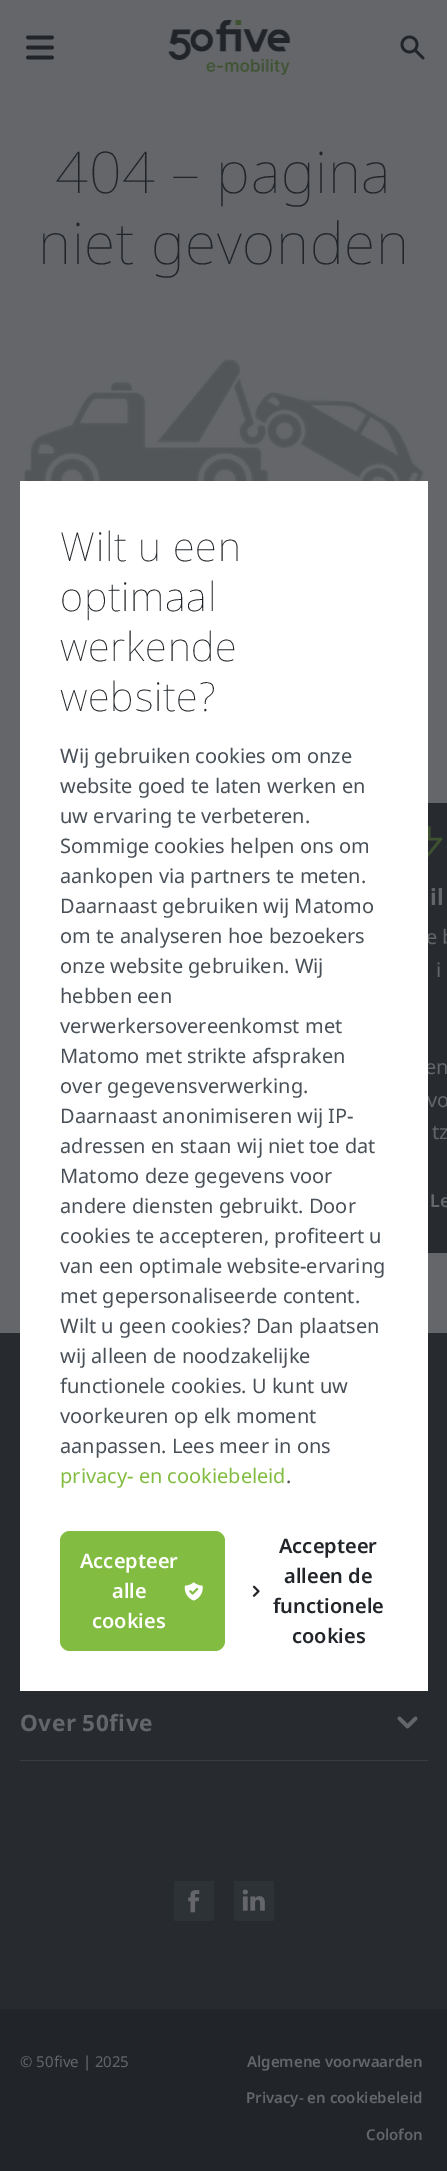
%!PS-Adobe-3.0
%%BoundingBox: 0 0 447 2171
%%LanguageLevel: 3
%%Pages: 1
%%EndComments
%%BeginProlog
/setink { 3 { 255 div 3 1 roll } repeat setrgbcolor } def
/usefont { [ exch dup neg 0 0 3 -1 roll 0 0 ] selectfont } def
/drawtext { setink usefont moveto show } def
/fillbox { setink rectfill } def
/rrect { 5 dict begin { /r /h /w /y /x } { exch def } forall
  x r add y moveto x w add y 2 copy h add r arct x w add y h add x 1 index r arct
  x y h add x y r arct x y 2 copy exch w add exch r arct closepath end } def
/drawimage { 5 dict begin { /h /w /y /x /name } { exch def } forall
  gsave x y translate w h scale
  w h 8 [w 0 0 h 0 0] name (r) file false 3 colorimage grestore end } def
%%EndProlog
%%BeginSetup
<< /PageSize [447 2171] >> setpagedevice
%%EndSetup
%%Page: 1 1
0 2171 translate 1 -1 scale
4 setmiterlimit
0 0 447 2171 100 102 105 fillbox
(assets/img1.rgb) 26 35 28 25 drawimage
(assets/img2.rgb) 168 20 123 55 drawimage
(assets/img3.rgb) 400 35 25 25 drawimage
/NotoSans-Thin 57.5 usefont
33 37 41 setink
55 193 moveto 0.75 0 (404 – pagina) ashow
38 264 moveto 0.75 0 (niet gevonden) ashow
(assets/img4.rgb) 24 359 400 122 drawimage
428 803 19 450 39 43 48 fillbox
62 82 48 setink
2.5 setlinewidth
1 setlinecap
1 setlinejoin
429 839 moveto 429 827.5 lineto 414 846 lineto 426 846 lineto 426 857.5 lineto 441 839 lineto closepath stroke
/NotoSans-Bold 22.5 usefont
100 102 105 setink
430 905 moveto 0.5 0 (il) ashow
(e b) 426 944 /NotoSans-Regular 20 100 102 105 drawtext
(i) 436 977 /NotoSans-Regular 20 100 102 105 drawtext
(en) 425 1074 /NotoSans-Regular 20 100 102 105 drawtext
(vo) 427 1107 /NotoSans-Regular 20 100 102 105 drawtext
(tz) 432 1139 /NotoSans-Regular 20 100 102 105 drawtext
(Le) 430 1207 /NotoSans-SemiBold 18 100 102 105 drawtext
0 1333 447 676 39 43 48 fillbox
20 481 408 1210 255 255 255 fillbox
/NotoSans-Thin 40 usefont
33 37 41 setink
60 561 moveto 0.75 0 (Wilt u een) ashow
60 611 moveto 0.75 0 (optimaal) ashow
60 661 moveto 0.75 0 (werkende) ashow
60 711 moveto 0.75 0 (website?) ashow
(Wij gebruiken cookies om onze) 60 763 /NotoSans-Regular 20 73 80 87 drawtext
(website goed te laten werken en) 60 793 /NotoSans-Regular 20 73 80 87 drawtext
(uw ervaring te verbeteren.) 60 823 /NotoSans-Regular 20 73 80 87 drawtext
(Sommige cookies helpen ons om) 60 853 /NotoSans-Regular 20 73 80 87 drawtext
(aankopen via partners te meten.) 60 883 /NotoSans-Regular 20 73 80 87 drawtext
(Daarnaast gebruiken wij Matomo) 60 913 /NotoSans-Regular 20 73 80 87 drawtext
(om te analyseren hoe bezoekers) 60 943 /NotoSans-Regular 20 73 80 87 drawtext
(onze website gebruiken. Wij) 60 973 /NotoSans-Regular 20 73 80 87 drawtext
(hebben een) 60 1003 /NotoSans-Regular 20 73 80 87 drawtext
(verwerkersovereenkomst met) 60 1033 /NotoSans-Regular 20 73 80 87 drawtext
(Matomo met strikte afspraken) 60 1063 /NotoSans-Regular 20 73 80 87 drawtext
(over gegevensverwerking.) 60 1093 /NotoSans-Regular 20 73 80 87 drawtext
(Daarnaast anonimiseren wij IP-) 60 1123 /NotoSans-Regular 20 73 80 87 drawtext
(adressen en staan wij niet toe dat) 60 1153 /NotoSans-Regular 20 73 80 87 drawtext
(Matomo deze gegevens voor) 60 1183 /NotoSans-Regular 20 73 80 87 drawtext
(andere diensten gebruikt. Door) 60 1213 /NotoSans-Regular 20 73 80 87 drawtext
(cookies te accepteren, profiteert u) 60 1243 /NotoSans-Regular 20 73 80 87 drawtext
(van een optimale website-ervaring) 60 1273 /NotoSans-Regular 20 73 80 87 drawtext
(met gepersonaliseerde content.) 60 1303 /NotoSans-Regular 20 73 80 87 drawtext
(Wilt u geen cookies? Dan plaatsen) 60 1333 /NotoSans-Regular 20 73 80 87 drawtext
(wij alleen de noodzakelijke) 60 1363 /NotoSans-Regular 20 73 80 87 drawtext
(functionele cookies. U kunt uw) 60 1393 /NotoSans-Regular 20 73 80 87 drawtext
(voorkeuren op elk moment) 60 1423 /NotoSans-Regular 20 73 80 87 drawtext
(aanpassen. Lees meer in ons) 60 1453 /NotoSans-Regular 20 73 80 87 drawtext
(privacy- en cookiebeleid) 60 1483 /NotoSans-Regular 20 130 188 65 drawtext
(.) 286 1483 /NotoSans-Regular 20 73 80 87 drawtext
130 188 65 setink
60 1531 165 120 10 rrect fill
(Accepteer) 80 1568 /NotoSans-SemiBold 20 255 255 255 drawtext
(alle) 112 1598 /NotoSans-SemiBold 20 255 255 255 drawtext
(assets/img5.rgb) 184 1582 19 19 drawimage
(cookies) 92 1628 /NotoSans-SemiBold 20 255 255 255 drawtext
(Accepteer) 279 1553 /NotoSans-SemiBold 20 33 37 41 drawtext
(alleen de) 284 1583 /NotoSans-SemiBold 20 33 37 41 drawtext
(assets/img6.rgb) 252 1585 8 12 drawimage
(functionele) 273 1613 /NotoSans-SemiBold 20 33 37 41 drawtext
(cookies) 292 1643 /NotoSans-SemiBold 20 33 37 41 drawtext
/NotoSans-Bold 22.5 usefont
100 102 105 setink
20 1731 moveto 0.5 0 (Over 50five) ashow
(assets/img7.rgb) 397 1716 21 13 drawimage
20 1760 408 1 56 61 66 fillbox
174 1881 40 40 45 50 55 fillbox
(assets/img8.rgb) 188 1890 12 23 drawimage
234 1881 40 40 45 50 55 fillbox
(assets/img9.rgb) 242 1889 23 22 drawimage
0 2009 447 162 33 37 41 fillbox
(© 50five | 2025) 20 2067 /NotoSans-Regular 15 100 102 105 drawtext
(Algemene voorwaarden) 247 2067 /NotoSans-SemiBold 15 100 102 105 drawtext
(Privacy- en cookiebeleid) 246 2103 /NotoSans-SemiBold 15 100 102 105 drawtext
(Colofon) 366 2140 /NotoSans-SemiBold 15 100 102 105 drawtext
showpage
%%EOF
